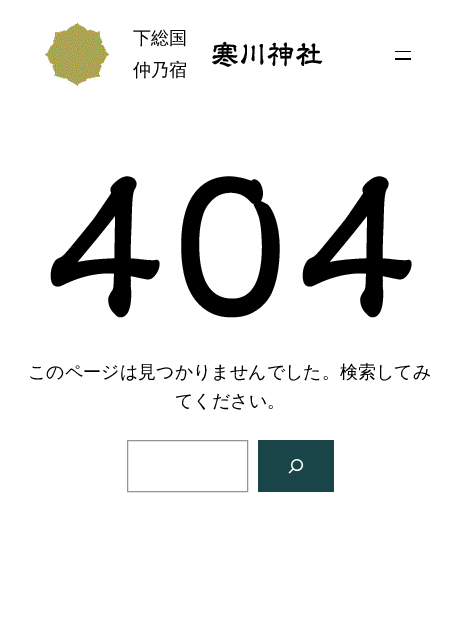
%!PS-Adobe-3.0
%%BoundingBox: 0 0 460 618
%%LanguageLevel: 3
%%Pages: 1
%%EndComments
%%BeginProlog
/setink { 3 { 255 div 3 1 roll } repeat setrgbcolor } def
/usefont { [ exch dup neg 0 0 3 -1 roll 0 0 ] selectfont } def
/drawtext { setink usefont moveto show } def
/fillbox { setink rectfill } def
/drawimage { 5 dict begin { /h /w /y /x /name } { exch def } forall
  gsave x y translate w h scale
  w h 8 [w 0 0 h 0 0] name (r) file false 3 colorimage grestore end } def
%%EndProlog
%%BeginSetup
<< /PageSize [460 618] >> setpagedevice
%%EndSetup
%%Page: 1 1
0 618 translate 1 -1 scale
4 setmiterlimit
0 0 460 618 255 255 255 fillbox
(assets/img1.rgb) 45 23 64 63 drawimage
(下総国) 133 44 /WenQuanYiZenHei-Medium 18 0 0 0 drawtext
(仲乃宿) 133 76 /WenQuanYiZenHei-Medium 18 0 0 0 drawtext
(寒川神社) 211 65 /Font-Regular 28 0 0 0 drawtext
395 51 16 1 0 0 0 fillbox
395 58 16 2 0 0 0 fillbox
(404) 41 312 /Font-Regular 184 0 0 0 drawtext
(このページは見つかりませんでした。検索してみ) 28 378 /WenQuanYiZenHei-Medium 18 0 0 0 drawtext
(てください。) 175 407 /WenQuanYiZenHei-Medium 18 0 0 0 drawtext
148 148 148 setink
127.5 440.5 120 51 rectstroke
258 440 76 52 26 69 72 fillbox
(assets/img2.rgb) 288 459 16 15 drawimage
showpage
%%EOF
